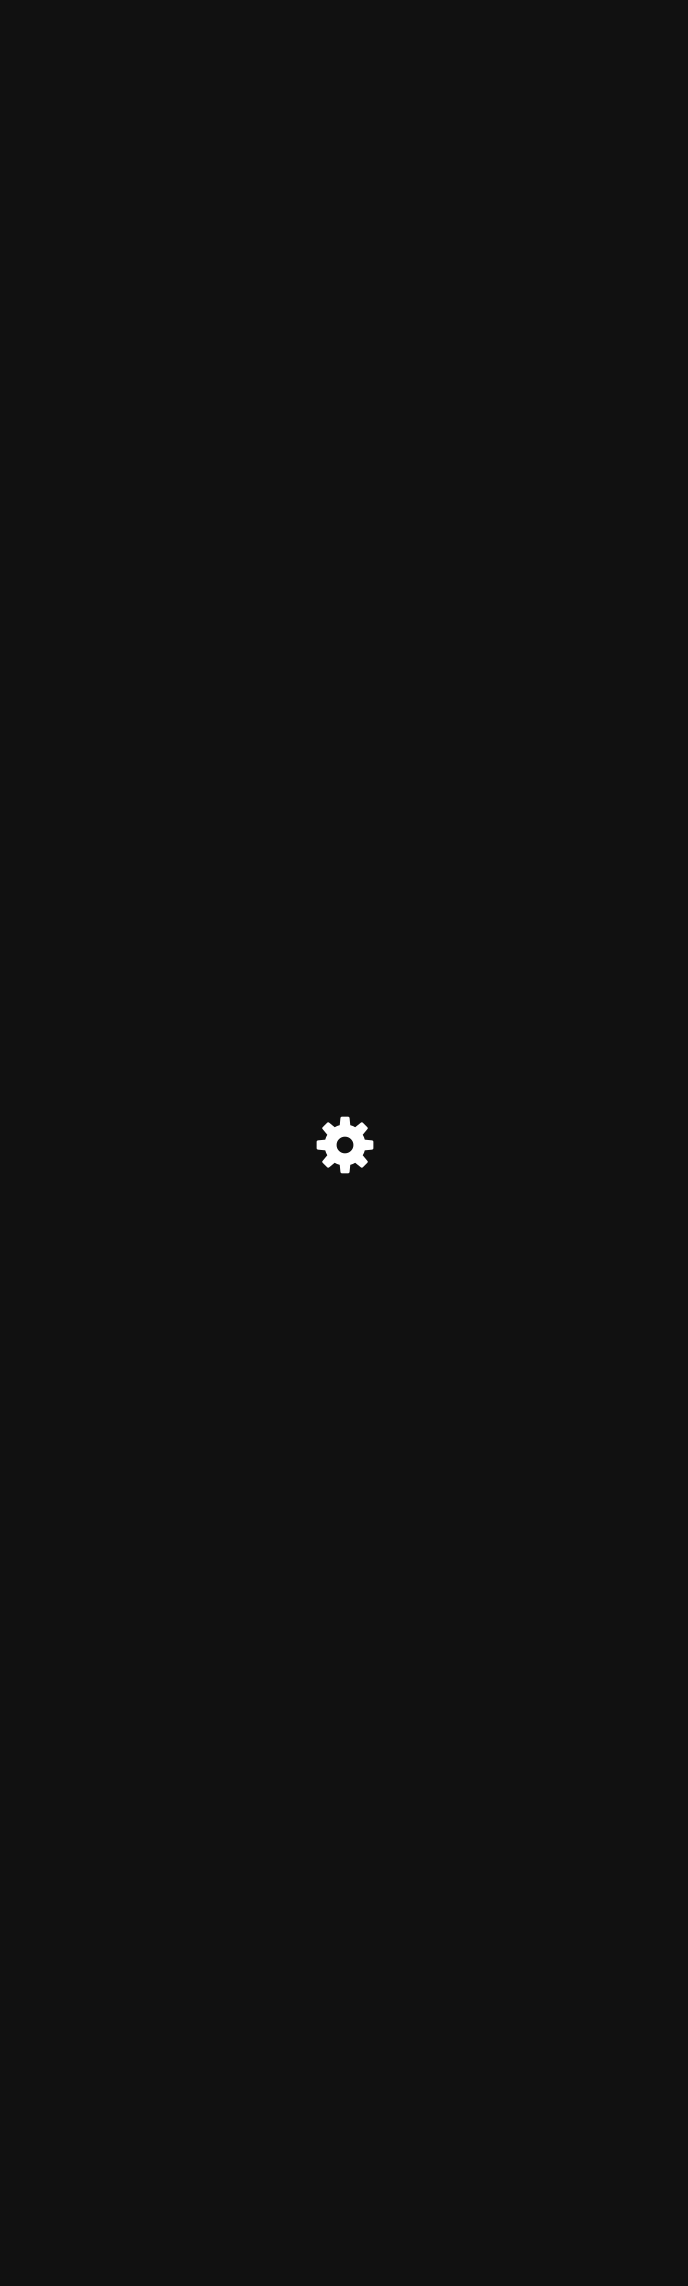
%!PS-Adobe-3.0
%%BoundingBox: 0 0 688 2286
%%LanguageLevel: 3
%%Pages: 1
%%EndComments
%%BeginProlog
/setink { 3 { 255 div 3 1 roll } repeat setrgbcolor } def
/fillbox { setink rectfill } def
/drawimage { 5 dict begin { /h /w /y /x /name } { exch def } forall
  gsave x y translate w h scale
  w h 8 [w 0 0 h 0 0] name (r) file false 3 colorimage grestore end } def
%%EndProlog
%%BeginSetup
<< /PageSize [688 2286] >> setpagedevice
%%EndSetup
%%Page: 1 1
0 2286 translate 1 -1 scale
4 setmiterlimit
0 0 688 2286 17 17 17 fillbox
(assets/img1.rgb) 316 1116 58 58 drawimage
showpage
%%EOF
